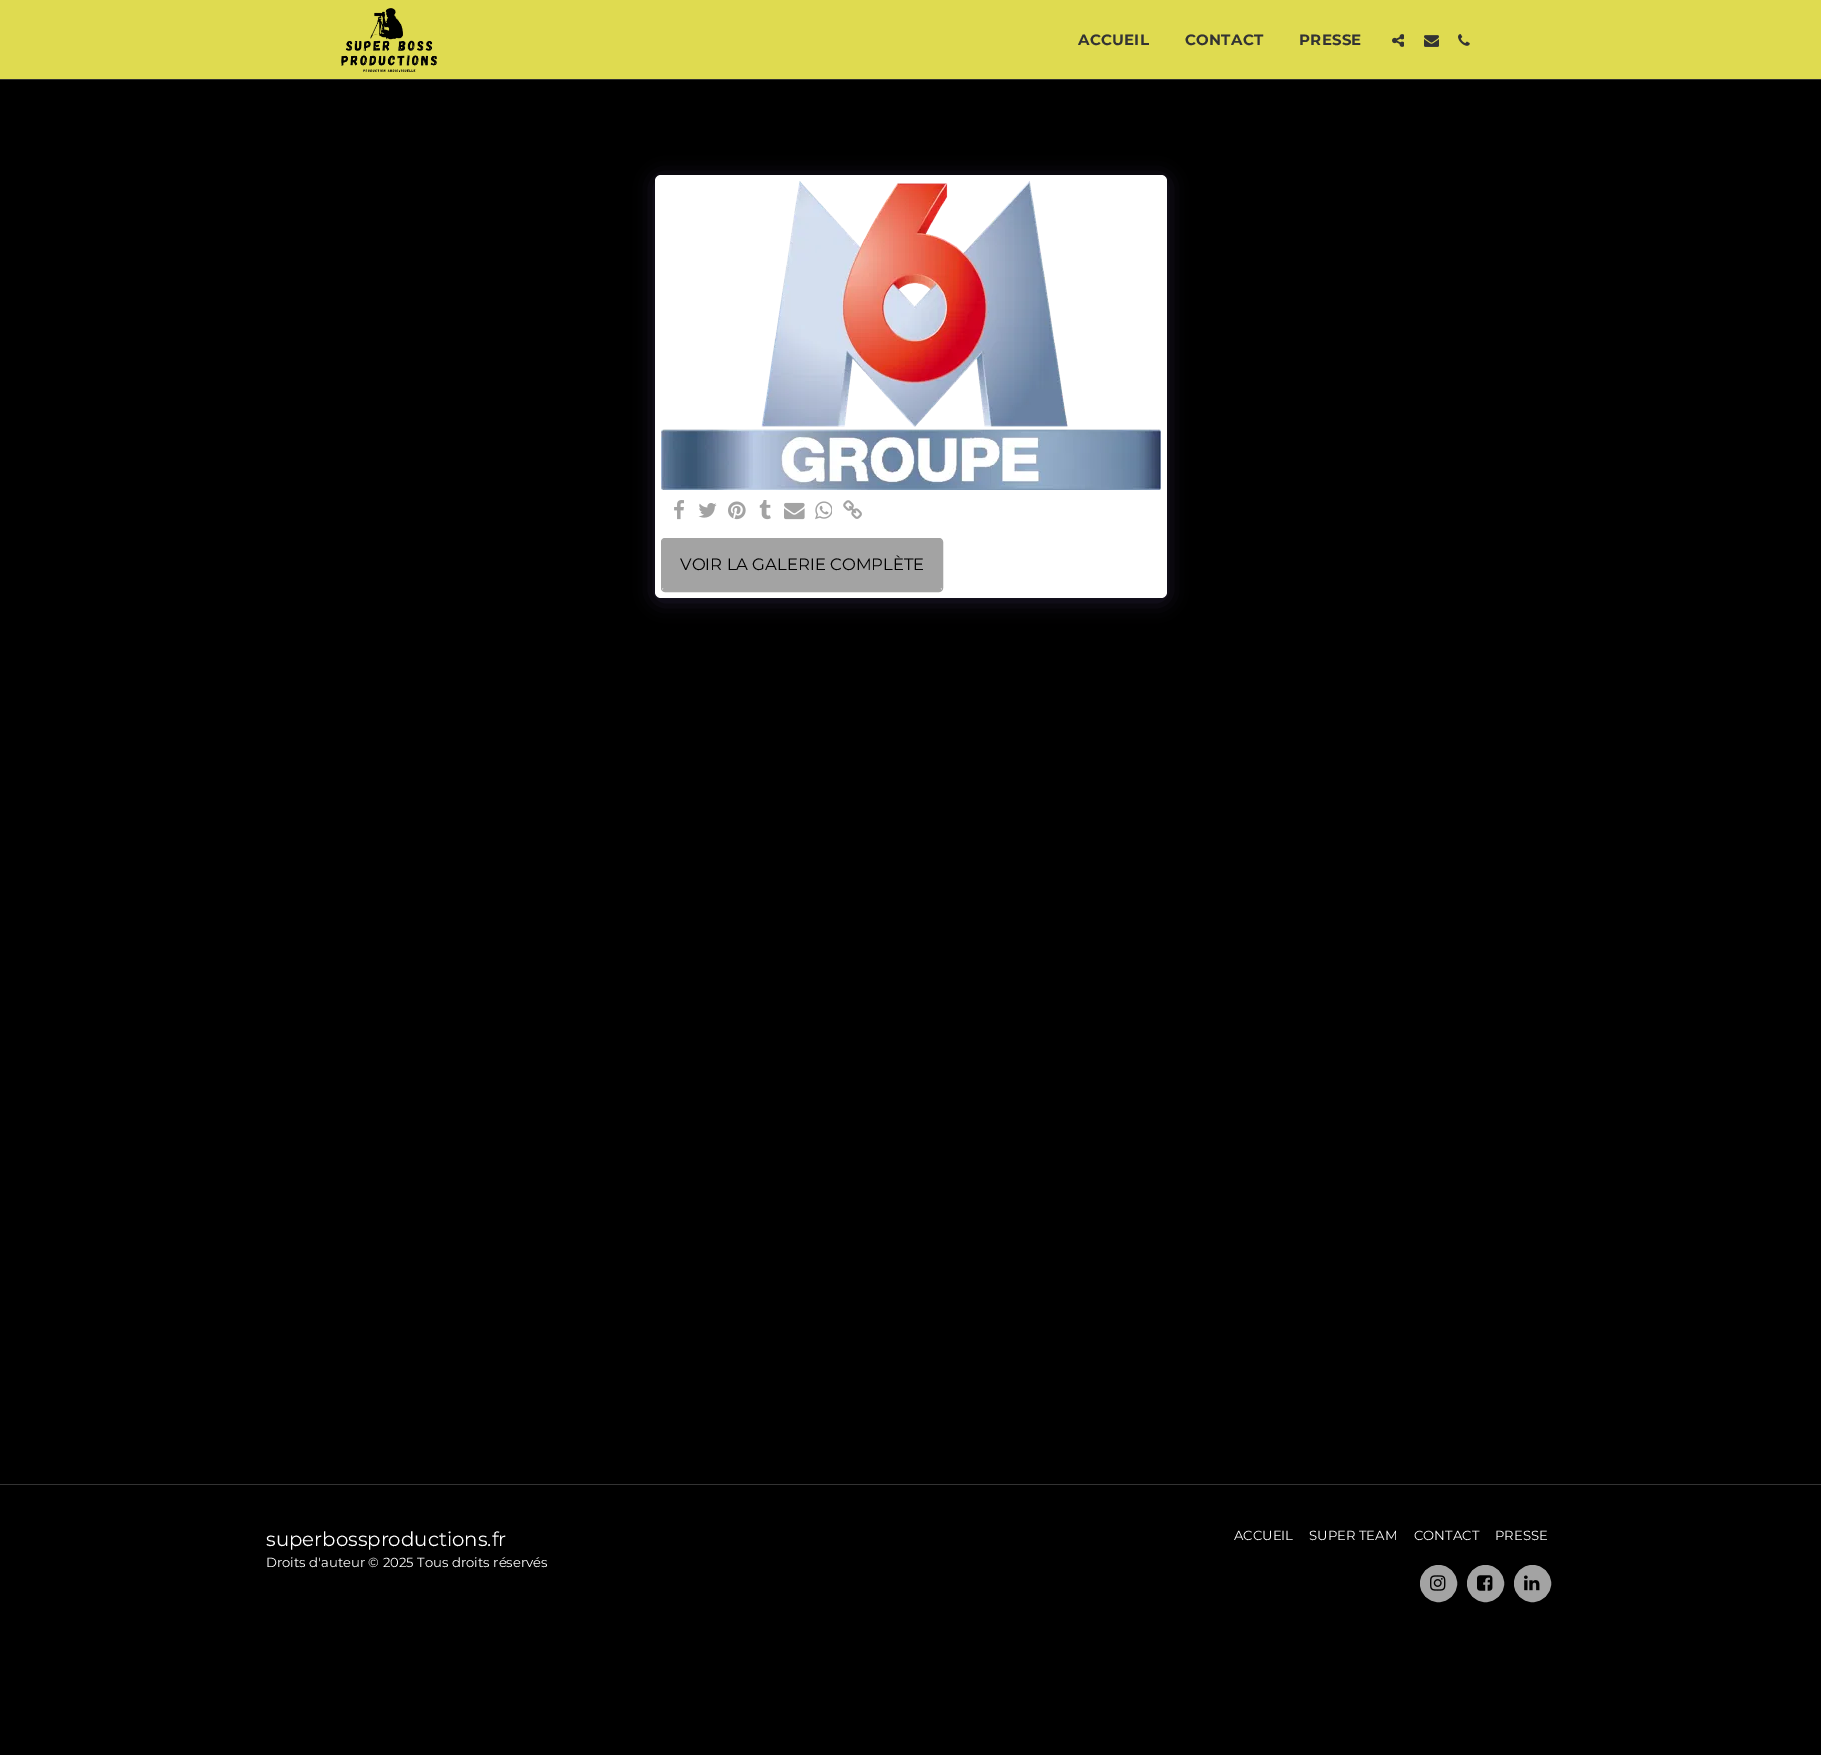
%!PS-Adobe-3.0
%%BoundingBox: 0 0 1821 1755
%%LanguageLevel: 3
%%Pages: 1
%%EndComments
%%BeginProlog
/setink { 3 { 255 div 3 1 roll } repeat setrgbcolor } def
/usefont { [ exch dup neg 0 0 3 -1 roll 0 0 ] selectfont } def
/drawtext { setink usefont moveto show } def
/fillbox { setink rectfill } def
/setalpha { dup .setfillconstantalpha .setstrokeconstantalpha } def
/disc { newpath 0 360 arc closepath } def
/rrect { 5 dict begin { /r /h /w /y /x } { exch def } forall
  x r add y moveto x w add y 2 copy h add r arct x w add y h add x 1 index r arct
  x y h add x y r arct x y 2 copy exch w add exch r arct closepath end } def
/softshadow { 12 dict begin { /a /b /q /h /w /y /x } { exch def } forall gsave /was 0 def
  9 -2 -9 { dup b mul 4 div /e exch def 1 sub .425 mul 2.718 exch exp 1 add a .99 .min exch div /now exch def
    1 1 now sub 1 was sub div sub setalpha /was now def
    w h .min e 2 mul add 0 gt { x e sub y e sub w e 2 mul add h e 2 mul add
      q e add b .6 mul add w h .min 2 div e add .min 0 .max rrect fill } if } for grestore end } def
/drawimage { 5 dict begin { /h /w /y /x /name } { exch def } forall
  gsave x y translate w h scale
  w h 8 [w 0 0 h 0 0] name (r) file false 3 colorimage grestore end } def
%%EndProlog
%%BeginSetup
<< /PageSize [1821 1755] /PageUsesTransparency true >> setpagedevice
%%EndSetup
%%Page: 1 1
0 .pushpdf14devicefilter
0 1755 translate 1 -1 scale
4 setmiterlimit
0 0 1821 1755 0 0 0 fillbox
0 0 1821 79 223 219 80 fillbox
0 79 1821 1 51 51 51 fillbox
(assets/img1.rgb) 341 8 96 64 drawimage
/Montserrat-Bold 15 usefont
1078 45 moveto 0.25 0 (ACCUEIL) ashow
1185 45 moveto 0.25 0 (CONTACT) ashow
1299 45 moveto 0.25 0 (PRESSE) ashow
(assets/img2.rgb) 1392 34 12 13 drawimage
(assets/img3.rgb) 1424 35 15 12 drawimage
(assets/img4.rgb) 1458 34 12 12 drawimage
77 63 122 setink
655 178 512 423 6 10 0.4 softshadow
255 255 255 setink
655 175 512 423 6 rrect fill
(assets/img5.rgb) 661 181 500 309 drawimage
(assets/img6.rgb) 674 500 10 20 drawimage
(assets/img7.rgb) 698 503 19 15 drawimage
(assets/img8.rgb) 728 501 18 19 drawimage
(assets/img9.rgb) 759 500 12 20 drawimage
(assets/img10.rgb) 784 502 21 18 drawimage
(assets/img11.rgb) 815 501 17 19 drawimage
(assets/img12.rgb) 843 500 19 19 drawimage
163 163 163 setink
664 539 moveto 940 539 lineto 941 539 942 540 942 542 curveto 942 588 lineto 940 589 lineto 664 589 lineto 662 588 lineto 662 542 lineto 662 540 663 539 664 539 curveto closepath fill
661.5 538.5 281 53 3.5 rrect stroke
663 589 278 2 163 163 163 fillbox
(VOIR LA GALERIE COMPLÈTE) 680 570 /Montserrat-Regular 16.5 0 0 0 drawtext
0 1484 1821 1 51 51 51 fillbox
(superbossproductions.fr) 266 1546 /Montserrat-Regular 19.75 255 255 255 drawtext
(Droits d'auteur © 2025 Tous droits réservés) 266 1567 /Montserrat-Regular 13.2 255 255 255 drawtext
(ACCUEIL) 1234 1540 /Montserrat-Regular 13.2 255 255 255 drawtext
(SUPER TEAM) 1309 1540 /Montserrat-Regular 13.2 255 255 255 drawtext
(CONTACT) 1414 1540 /Montserrat-Regular 13.2 255 255 255 drawtext
(PRESSE) 1495 1540 /Montserrat-Regular 13.2 255 255 255 drawtext
163 163 163 setink
1438.5 1583.5 18 disc gsave fill grestore
stroke
(assets/img13.rgb) 1430 1575 16 16 drawimage
1485.5 1583.5 18 disc gsave fill grestore
stroke
(assets/img14.rgb) 1477 1575 16 16 drawimage
1532.5 1583.5 18 disc gsave fill grestore
stroke
(assets/img15.rgb) 1524 1575 16 16 drawimage
.poppdf14devicefilter showpage
%%EOF
